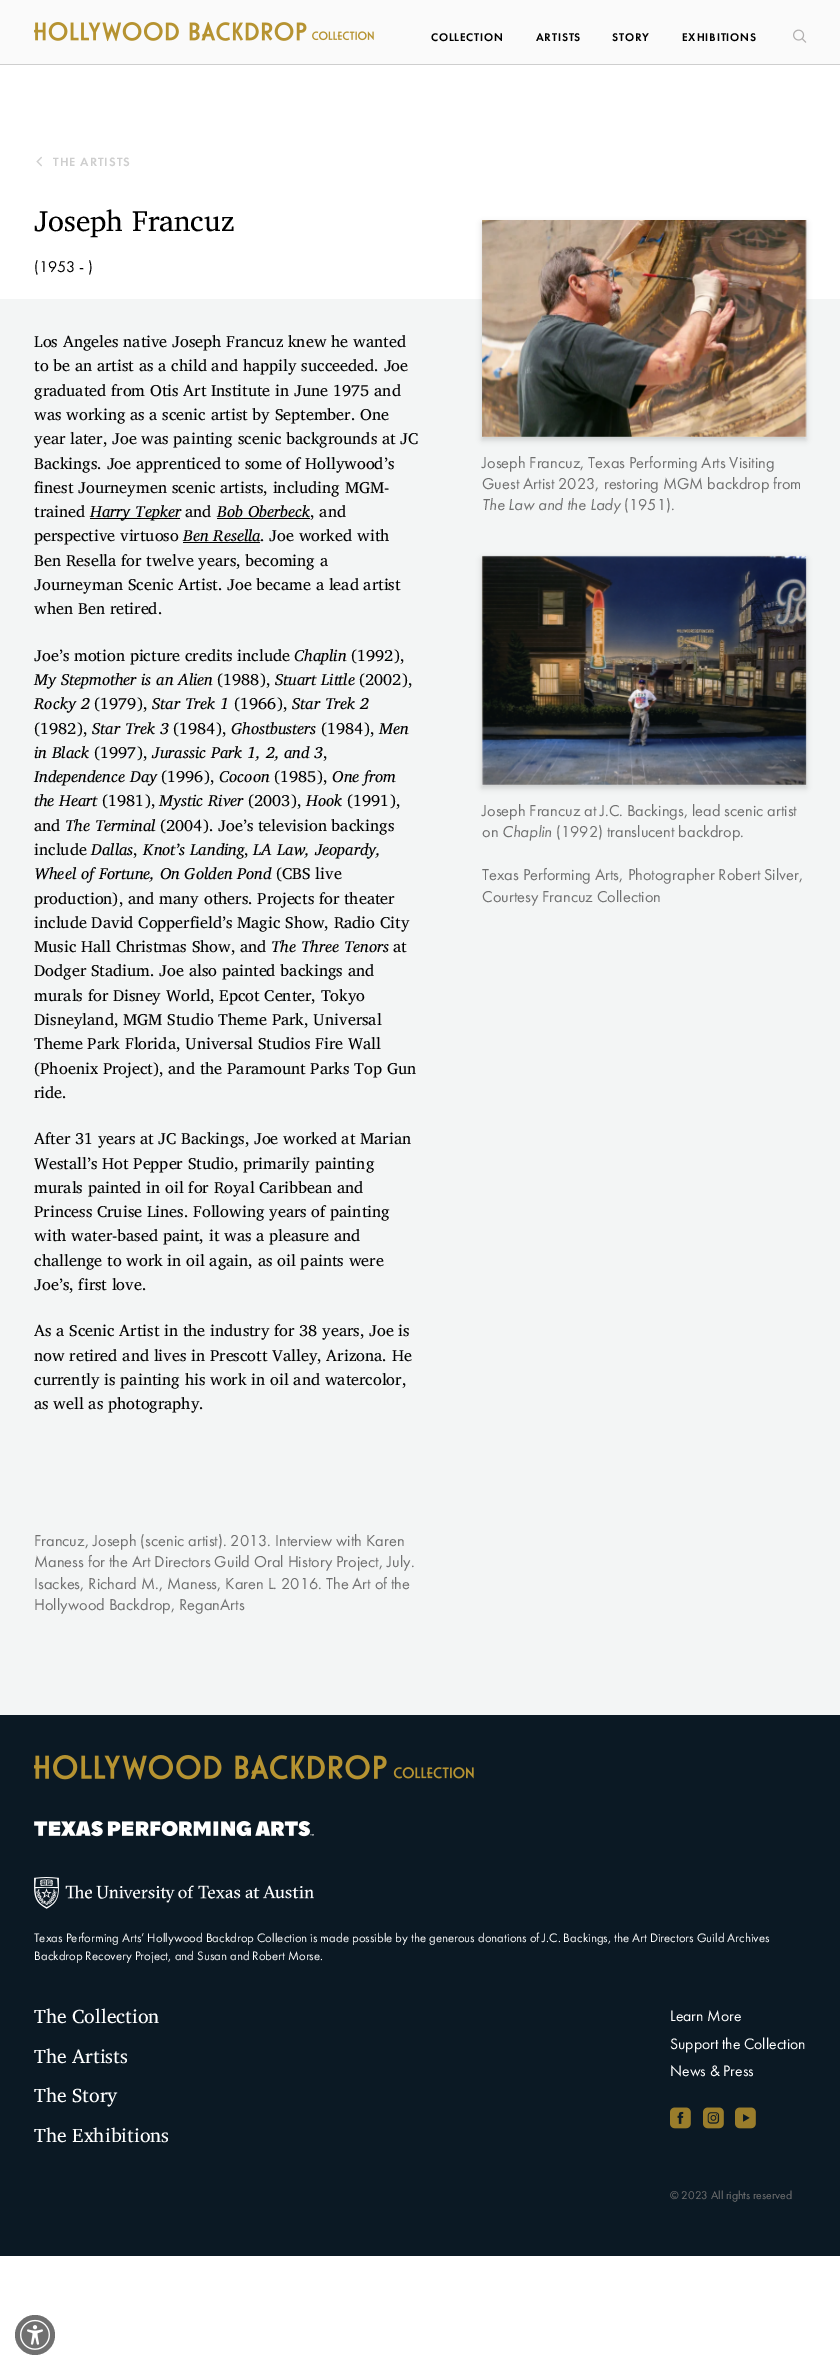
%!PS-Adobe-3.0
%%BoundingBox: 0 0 840 2368
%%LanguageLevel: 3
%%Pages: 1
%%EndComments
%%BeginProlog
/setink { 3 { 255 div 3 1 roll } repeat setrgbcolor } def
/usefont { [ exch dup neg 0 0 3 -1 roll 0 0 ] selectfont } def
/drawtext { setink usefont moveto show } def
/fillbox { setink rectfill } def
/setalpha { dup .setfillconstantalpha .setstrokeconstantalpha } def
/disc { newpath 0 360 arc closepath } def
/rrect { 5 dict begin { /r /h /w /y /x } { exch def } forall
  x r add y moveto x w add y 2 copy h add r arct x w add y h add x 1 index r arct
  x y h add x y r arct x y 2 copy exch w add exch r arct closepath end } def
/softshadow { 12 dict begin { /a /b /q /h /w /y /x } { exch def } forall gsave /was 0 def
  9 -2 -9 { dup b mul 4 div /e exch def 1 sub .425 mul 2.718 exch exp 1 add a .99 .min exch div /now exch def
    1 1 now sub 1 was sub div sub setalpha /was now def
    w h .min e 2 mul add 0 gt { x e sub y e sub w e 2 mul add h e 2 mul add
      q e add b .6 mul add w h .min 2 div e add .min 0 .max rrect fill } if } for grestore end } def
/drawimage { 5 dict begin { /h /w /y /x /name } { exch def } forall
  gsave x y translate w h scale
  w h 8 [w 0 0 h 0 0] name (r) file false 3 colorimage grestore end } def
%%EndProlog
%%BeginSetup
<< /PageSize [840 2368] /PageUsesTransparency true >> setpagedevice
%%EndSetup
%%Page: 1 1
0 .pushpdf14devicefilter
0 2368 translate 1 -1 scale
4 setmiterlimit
0 0 840 2368 255 255 255 fillbox
0 0 840 64 250 250 250 fillbox
0 64 840 1 206 206 206 fillbox
(assets/img1.rgb) 34 22 340 20 drawimage
/FuturaPT-Medium 11.5 usefont
0 0 0 setink
431 41 moveto 0.75 0 (COLLECTION) ashow
536 41 moveto 0.75 0 (ARTISTS) ashow
612 41 moveto 0.75 0 (STORY) ashow
682 41 moveto 0.75 0 (EXHIBITIONS) ashow
(assets/img2.rgb) 793 29 14 14 drawimage
(assets/img3.rgb) 36 156 6 11 drawimage
/FuturaPT-Medium 12.5 usefont
206 206 206 setink
53 166 moveto 1 0 (THE ARTISTS) ashow
(Joseph Francuz) 34 231 /CharisSIL-Regular 29.25 0 0 0 drawtext
(\(1953 - \)) 34 272 /FuturaPT-Regular 16.2 0 0 0 drawtext
0 299 840 1416 243 245 245 fillbox
(Los Angeles native Joseph Francuz knew he wanted) 34 347 /CharisSIL-Regular 16.2 0 0 0 drawtext
(to be an artist as a child and happily succeeded. Joe) 34 371 /CharisSIL-Regular 16.2 0 0 0 drawtext
(graduated from Otis Art Institute in June 1975 and) 34 396 /CharisSIL-Regular 16.2 0 0 0 drawtext
(was working as a scenic artist by September. One) 34 420 /CharisSIL-Regular 16.2 0 0 0 drawtext
(year later, Joe was painting scenic backgrounds at JC) 34 444 /CharisSIL-Regular 16.2 0 0 0 drawtext
(Backings. Joe apprenticed to some of Hollywood’s) 34 469 /CharisSIL-Regular 16.2 0 0 0 drawtext
(finest Journeymen scenic artists, including MGM-) 34 493 /CharisSIL-Regular 16.2 0 0 0 drawtext
(trained) 34 517 /CharisSIL-Regular 16.2 0 0 0 drawtext
90 518 90 1 0 0 0 fillbox
(Harry Tepker) 90 517 /CharisSIL-Italic 16.2 0 0 0 drawtext
(and) 185 517 /CharisSIL-Regular 16.2 0 0 0 drawtext
(Bob Oberbeck) 217 517 /CharisSIL-Italic 16.2 0 0 0 drawtext
217 518 93 1 0 0 0 fillbox
(, and) 310 517 /CharisSIL-Regular 16.2 0 0 0 drawtext
(perspective virtuoso) 34 541 /CharisSIL-Regular 16.2 0 0 0 drawtext
(Ben Resella) 183 541 /CharisSIL-Italic 16.2 0 0 0 drawtext
183 542 77 1 0 0 0 fillbox
(. Joe worked with) 260 541 /CharisSIL-Regular 16.2 0 0 0 drawtext
(Ben Resella for twelve years, becoming a) 34 566 /CharisSIL-Regular 16.2 0 0 0 drawtext
(Journeyman Scenic Artist. Joe became a lead artist) 34 590 /CharisSIL-Regular 16.2 0 0 0 drawtext
(when Ben retired.) 34 614 /CharisSIL-Regular 16.2 0 0 0 drawtext
(Joe’s motion picture credits include) 34 661 /CharisSIL-Regular 16.2 0 0 0 drawtext
(Chaplin) 294 661 /CharisSIL-Italic 16.2 0 0 0 drawtext
(\(1992\),) 351 661 /CharisSIL-Regular 16.2 0 0 0 drawtext
(My Stepmother is an Alien) 34 685 /CharisSIL-Italic 16.2 0 0 0 drawtext
(\(1988\),) 217 685 /CharisSIL-Regular 16.2 0 0 0 drawtext
(Stuart Little) 275 685 /CharisSIL-Italic 16.2 0 0 0 drawtext
(\(2002\),) 359 685 /CharisSIL-Regular 16.2 0 0 0 drawtext
(Rocky 2) 34 709 /CharisSIL-Italic 16.2 0 0 0 drawtext
(\(1979\),) 94 709 /CharisSIL-Regular 16.2 0 0 0 drawtext
(Star Trek 1) 152 709 /CharisSIL-Italic 16.2 0 0 0 drawtext
(\(1966\),) 234 709 /CharisSIL-Regular 16.2 0 0 0 drawtext
(Star Trek 2) 292 709 /CharisSIL-Italic 16.2 0 0 0 drawtext
(\(1982\),) 34 734 /CharisSIL-Regular 16.2 0 0 0 drawtext
(Star Trek 3) 92 734 /CharisSIL-Italic 16.2 0 0 0 drawtext
(\(1984\),) 173 734 /CharisSIL-Regular 16.2 0 0 0 drawtext
(Ghostbusters) 231 734 /CharisSIL-Italic 16.2 0 0 0 drawtext
(\(1984\),) 321 734 /CharisSIL-Regular 16.2 0 0 0 drawtext
(Men) 379 734 /CharisSIL-Italic 16.2 0 0 0 drawtext
(in Black) 34 758 /CharisSIL-Italic 16.2 0 0 0 drawtext
(\(1997\),) 94 758 /CharisSIL-Regular 16.2 0 0 0 drawtext
(Jurassic Park 1, 2, and 3) 152 758 /CharisSIL-Italic 16.2 0 0 0 drawtext
(,) 323 758 /CharisSIL-Regular 16.2 0 0 0 drawtext
(Independence Day) 34 782 /CharisSIL-Italic 16.2 0 0 0 drawtext
(\(1996\),) 161 782 /CharisSIL-Regular 16.2 0 0 0 drawtext
(Cocoon) 219 782 /CharisSIL-Italic 16.2 0 0 0 drawtext
(\(1985\),) 274 782 /CharisSIL-Regular 16.2 0 0 0 drawtext
(One from) 332 782 /CharisSIL-Italic 16.2 0 0 0 drawtext
(the Heart) 34 806 /CharisSIL-Italic 16.2 0 0 0 drawtext
(\(1981\),) 102 806 /CharisSIL-Regular 16.2 0 0 0 drawtext
(Mystic River) 159 806 /CharisSIL-Italic 16.2 0 0 0 drawtext
(\(2003\),) 248 806 /CharisSIL-Regular 16.2 0 0 0 drawtext
(Hook) 306 806 /CharisSIL-Italic 16.2 0 0 0 drawtext
(\(1991\),) 347 806 /CharisSIL-Regular 16.2 0 0 0 drawtext
(and) 34 831 /CharisSIL-Regular 16.2 0 0 0 drawtext
(The Terminal) 65 831 /CharisSIL-Italic 16.2 0 0 0 drawtext
(\(2004\). Joe’s television backings) 160 831 /CharisSIL-Regular 16.2 0 0 0 drawtext
(include) 34 855 /CharisSIL-Regular 16.2 0 0 0 drawtext
(Dallas) 91 855 /CharisSIL-Italic 16.2 0 0 0 drawtext
(,) 133 855 /CharisSIL-Regular 16.2 0 0 0 drawtext
(Knot’s Landing) 143 855 /CharisSIL-Italic 16.2 0 0 0 drawtext
(,) 244 855 /CharisSIL-Regular 16.2 0 0 0 drawtext
(LA Law, Jeopardy,) 253 855 /CharisSIL-Italic 16.2 0 0 0 drawtext
(Wheel of Fortune, On Golden Pond) 34 879 /CharisSIL-Italic 16.2 0 0 0 drawtext
(\(CBS live) 276 879 /CharisSIL-Regular 16.2 0 0 0 drawtext
(production\), and many others. Projects for theater) 34 904 /CharisSIL-Regular 16.2 0 0 0 drawtext
(include David Copperfield’s Magic Show, Radio City) 34 928 /CharisSIL-Regular 16.2 0 0 0 drawtext
(Music Hall Christmas Show, and) 34 952 /CharisSIL-Regular 16.2 0 0 0 drawtext
(The Three Tenors) 271 952 /CharisSIL-Italic 16.2 0 0 0 drawtext
(at) 393 952 /CharisSIL-Regular 16.2 0 0 0 drawtext
(Dodger Stadium. Joe also painted backings and) 34 976 /CharisSIL-Regular 16.2 0 0 0 drawtext
(murals for Disney World, Epcot Center, Tokyo) 34 1001 /CharisSIL-Regular 16.2 0 0 0 drawtext
(Disneyland, MGM Studio Theme Park, Universal) 34 1025 /CharisSIL-Regular 16.2 0 0 0 drawtext
(Theme Park Florida, Universal Studios Fire Wall) 34 1049 /CharisSIL-Regular 16.2 0 0 0 drawtext
(\(Phoenix Project\), and the Paramount Parks Top Gun) 34 1074 /CharisSIL-Regular 16.2 0 0 0 drawtext
(ride.) 34 1098 /CharisSIL-Regular 16.2 0 0 0 drawtext
(After 31 years at JC Backings, Joe worked at Marian) 34 1144 /CharisSIL-Regular 16.2 0 0 0 drawtext
(Westall’s Hot Pepper Studio, primarily painting) 34 1169 /CharisSIL-Regular 16.2 0 0 0 drawtext
(murals painted in oil for Royal Caribbean and) 34 1193 /CharisSIL-Regular 16.2 0 0 0 drawtext
(Princess Cruise Lines. Following years of painting) 34 1217 /CharisSIL-Regular 16.2 0 0 0 drawtext
(with water-based paint, it was a pleasure and) 34 1241 /CharisSIL-Regular 16.2 0 0 0 drawtext
(challenge to work in oil again, as oil paints were) 34 1266 /CharisSIL-Regular 16.2 0 0 0 drawtext
(Joe’s, first love.) 34 1290 /CharisSIL-Regular 16.2 0 0 0 drawtext
(As a Scenic Artist in the industry for 38 years, Joe is) 34 1336 /CharisSIL-Regular 16.2 0 0 0 drawtext
(now retired and lives in Prescott Valley, Arizona. He) 34 1361 /CharisSIL-Regular 16.2 0 0 0 drawtext
(currently is painting his work in oil and watercolor,) 34 1385 /CharisSIL-Regular 16.2 0 0 0 drawtext
(as well as photography.) 34 1409 /CharisSIL-Regular 16.2 0 0 0 drawtext
(Francuz, Joseph \(scenic artist\). 2013. Interview with Karen) 34 1546 /FuturaPT-Regular 16.4 112 112 112 drawtext
(Maness for the Art Directors Guild Oral History Project, July.) 34 1567 /FuturaPT-Regular 16.4 112 112 112 drawtext
(Isackes, Richard M., Maness, Karen L. 2016. The Art of the) 34 1589 /FuturaPT-Regular 16.4 112 112 112 drawtext
(Hollywood Backdrop, ReganArts) 34 1610 /FuturaPT-Regular 16.4 112 112 112 drawtext
0 0 0 setink
482 223 324 217 0 3 0.16 softshadow
(assets/img4.rgb) 482 220 325 217 drawimage
(Joseph Francuz, Texas Performing Arts Visiting) 482 468 /FuturaPT-Regular 16.4 112 112 112 drawtext
(Guest Artist 2023, restoring MGM backdrop from) 482 489 /FuturaPT-Regular 16.4 112 112 112 drawtext
(The Law and the Lady) 482 510 /FuturaPT-Italic 16.4 112 112 112 drawtext
(\(1951\).) 624 510 /FuturaPT-Regular 16.4 112 112 112 drawtext
0 0 0 setink
482 559 324 229 0 3 0.16 softshadow
(assets/img5.rgb) 481 555 326 230 drawimage
(Joseph Francuz at J.C. Backings, lead scenic artist) 482 816 /FuturaPT-Regular 16.4 112 112 112 drawtext
(on) 482 837 /FuturaPT-Regular 16.4 112 112 112 drawtext
(Chaplin) 502 837 /FuturaPT-Italic 16.4 112 112 112 drawtext
(\(1992\) translucent backdrop.) 556 837 /FuturaPT-Regular 16.4 112 112 112 drawtext
(Texas Performing Arts, Photographer Robert Silver,) 482 880 /FuturaPT-Regular 16.4 112 112 112 drawtext
(Courtesy Francuz Collection) 482 902 /FuturaPT-Regular 16.4 112 112 112 drawtext
0 1715 840 541 11 25 36 fillbox
(assets/img6.rgb) 34 1755 440 25 drawimage
(assets/img7.rgb) 34 1821 280 16 drawimage
(assets/img8.rgb) 34 1877 280 32 drawimage
(Texas Performing Arts’ Hollywood Backdrop Collection is made possible by the generous donations of J.C. Backings, the Art Directors Guild Archives) 34 1942 /FuturaPT-Regular 12.8 255 255 255 drawtext
(Backdrop Recovery Project, and Susan and Robert Morse.) 34 1960 /FuturaPT-Regular 12.8 255 255 255 drawtext
(The Collection) 34 2023 /CharisSIL-Regular 19.5 255 255 255 drawtext
(The Artists) 34 2063 /CharisSIL-Regular 19.5 255 255 255 drawtext
(The Story) 34 2102 /CharisSIL-Regular 19.5 255 255 255 drawtext
(The Exhibitions) 34 2142 /CharisSIL-Regular 19.5 255 255 255 drawtext
(Learn More) 670 2021 /FuturaPT-Regular 15.75 255 255 255 drawtext
(Support the Collection) 670 2049 /FuturaPT-Regular 15.75 255 255 255 drawtext
(News & Press) 670 2076 /FuturaPT-Regular 15.75 255 255 255 drawtext
(assets/img9.rgb) 670 2107 21 22 drawimage
(assets/img10.rgb) 703 2107 21 22 drawimage
(assets/img11.rgb) 735 2107 21 22 drawimage
(© 2023 All rights reserved) 670 2199 /FuturaPT-Regular 11.75 112 112 112 drawtext
35 2335 20 disc fill
(assets/img12.rgb) 20 2319 30 31 drawimage
.poppdf14devicefilter showpage
%%EOF
